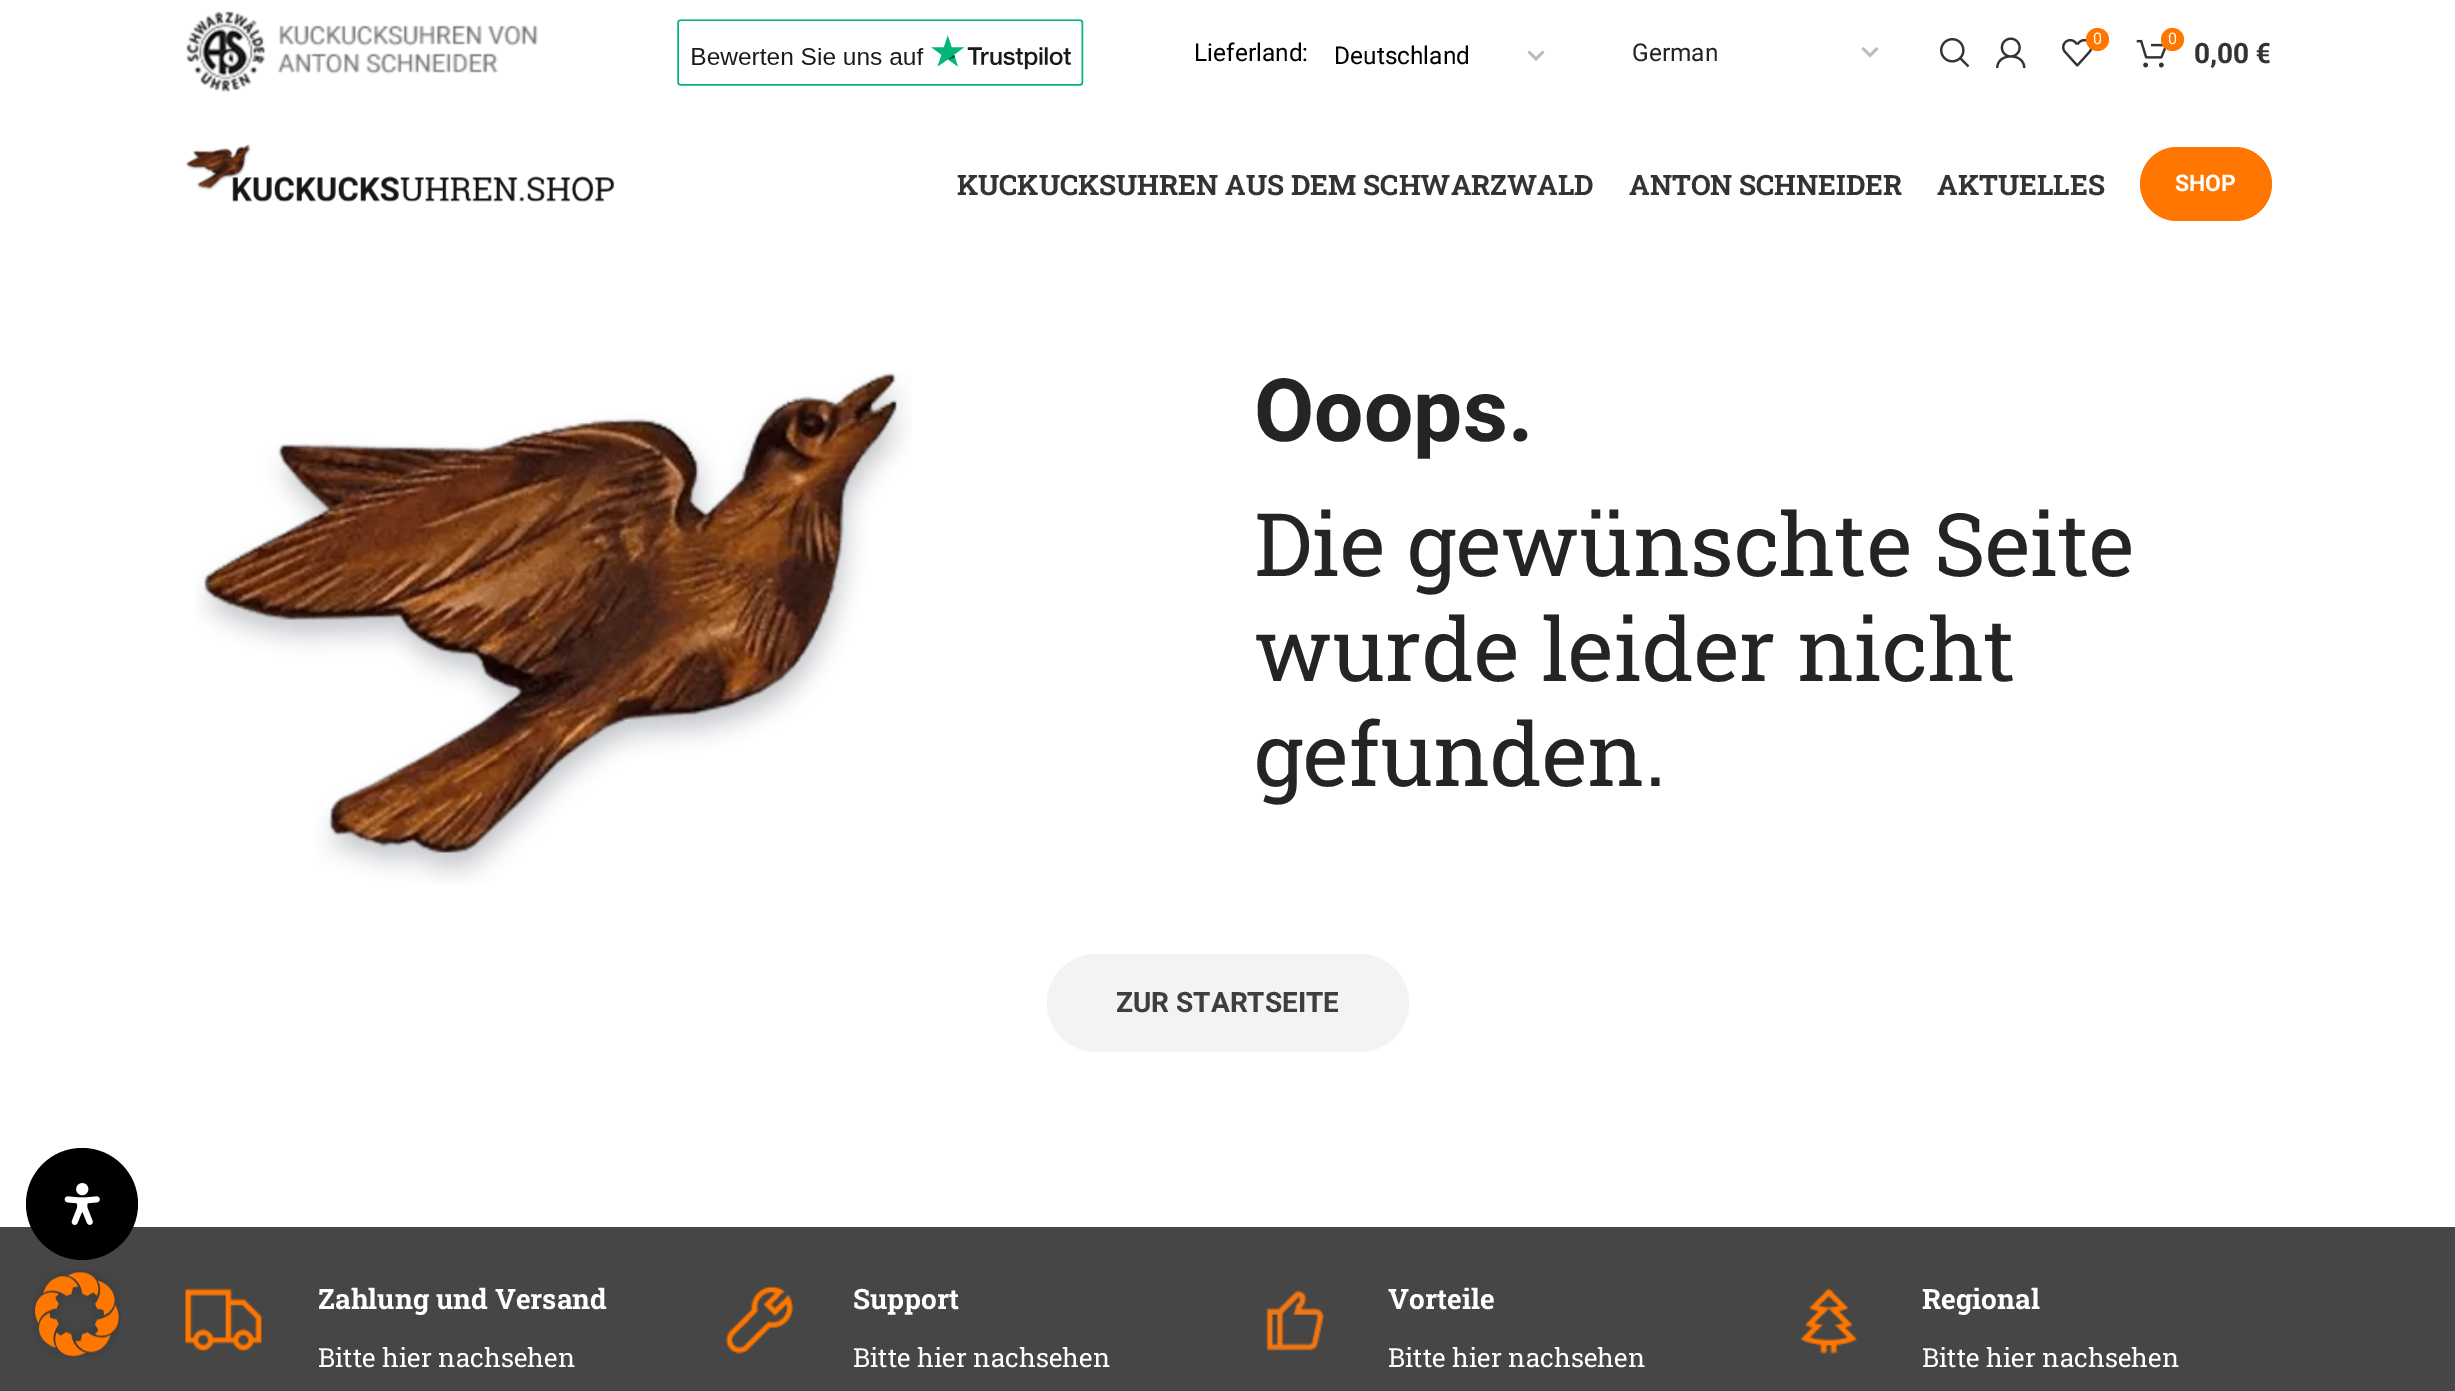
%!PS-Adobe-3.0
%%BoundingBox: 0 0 2455 1391
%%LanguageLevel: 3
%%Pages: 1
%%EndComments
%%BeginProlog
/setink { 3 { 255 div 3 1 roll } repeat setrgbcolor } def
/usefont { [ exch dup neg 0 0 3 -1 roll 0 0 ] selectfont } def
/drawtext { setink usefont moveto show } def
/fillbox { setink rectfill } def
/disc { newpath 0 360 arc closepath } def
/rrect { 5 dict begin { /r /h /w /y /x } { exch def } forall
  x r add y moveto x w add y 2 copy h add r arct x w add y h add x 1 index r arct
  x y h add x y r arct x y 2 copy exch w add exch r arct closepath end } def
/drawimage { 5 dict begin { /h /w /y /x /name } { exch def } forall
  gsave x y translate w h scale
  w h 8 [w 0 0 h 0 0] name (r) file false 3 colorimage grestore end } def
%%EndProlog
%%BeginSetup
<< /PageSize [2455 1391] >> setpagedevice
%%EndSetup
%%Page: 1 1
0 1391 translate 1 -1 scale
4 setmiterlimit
0 0 2455 1391 255 255 255 fillbox
0 1227 2455 164 70 70 70 fillbox
0 0 0 setink
82 1204 56 disc fill
(assets/img1.rgb) 64 1183 36 42 drawimage
(assets/img2.rgb) 186 11 352 81 drawimage
(assets/img3.rgb) 677 19 407 67 drawimage
(Lieferland:) 1194 61 /Roboto-Regular 24.5 0 0 0 drawtext
187 187 187 setink
2.5 setlinewidth
1528.5 51.5 moveto 1536 59 lineto 1543.5 51.5 lineto stroke
(Deutschland) 1334 64 /Roboto-Regular 24.5 0 0 0 drawtext
187 187 187 setink
1862.5 48 moveto 1870 55.5 lineto 1877.5 48 lineto stroke
(German) 1632 61 /Roboto-Regular 24.5 36 36 36 drawtext
(assets/img4.rgb) 1940 38 30 30 drawimage
(assets/img5.rgb) 1996 37 30 31 drawimage
(assets/img6.rgb) 2062 38 31 29 drawimage
255 119 0 setink
2097.5 39.5 11.5 disc fill
(0) 2093 44 /Roboto-Regular 16 255 255 255 drawtext
(assets/img7.rgb) 2136 39 30 29 drawimage
255 119 0 setink
2172.5 39.5 11.5 disc fill
(0) 2168 44 /Roboto-Regular 16 255 255 255 drawtext
(0,00 €) 2194 63 /RobotoSlab-Bold 28 51 51 51 drawtext
(assets/img8.rgb) 186 144 428 58 drawimage
(KUCKUCKSUHREN AUS DEM SCHWARZWALD) 957 195 /RobotoSlab-Bold 28 51 51 51 drawtext
(ANTON SCHNEIDER) 1629 195 /RobotoSlab-Bold 28 51 51 51 drawtext
(AKTUELLES) 1937 195 /RobotoSlab-Bold 28 51 51 51 drawtext
255 119 0 setink
2140 147 132 74 37 rrect fill
(SHOP) 2175 191 /Roboto-Bold 23 255 255 255 drawtext
(assets/img9.rgb) 196 372 716 512 drawimage
(Ooops.) 1254 441 /Roboto-Bold 87.5 36 36 36 drawtext
(Die gewünschte Seite) 1254 576 /RobotoSlab-Regular 87.5 36 36 36 drawtext
(wurde leider nicht) 1254 681 /RobotoSlab-Regular 87.5 36 36 36 drawtext
(gefunden.) 1254 786 /RobotoSlab-Regular 87.5 36 36 36 drawtext
243 243 243 setink
1047 954 362 98 49 rrect fill
(ZUR STARTSEITE) 1116 1012 /Roboto-Bold 28 62 62 62 drawtext
(assets/img10.rgb) 185 1288 77 63 drawimage
(Zahlung und Versand) 318 1309 /RobotoSlab-Bold 28 255 255 255 drawtext
(Bitte hier nachsehen) 318 1367 /RobotoSlab-Regular 26.25 255 255 255 drawtext
(assets/img11.rgb) 725 1287 69 67 drawimage
(Support) 853 1309 /RobotoSlab-Bold 28 255 255 255 drawtext
(Bitte hier nachsehen) 853 1367 /RobotoSlab-Regular 26.25 255 255 255 drawtext
(assets/img12.rgb) 1265 1290 60 61 drawimage
(Vorteile) 1388 1309 /RobotoSlab-Bold 28 255 255 255 drawtext
(Bitte hier nachsehen) 1388 1367 /RobotoSlab-Regular 26.25 255 255 255 drawtext
(assets/img13.rgb) 1800 1288 58 66 drawimage
(Regional) 1922 1309 /RobotoSlab-Bold 28 255 255 255 drawtext
(Bitte hier nachsehen) 1922 1367 /RobotoSlab-Regular 26.25 255 255 255 drawtext
(assets/img14.rgb) 32 1270 89 88 drawimage
showpage
%%EOF
